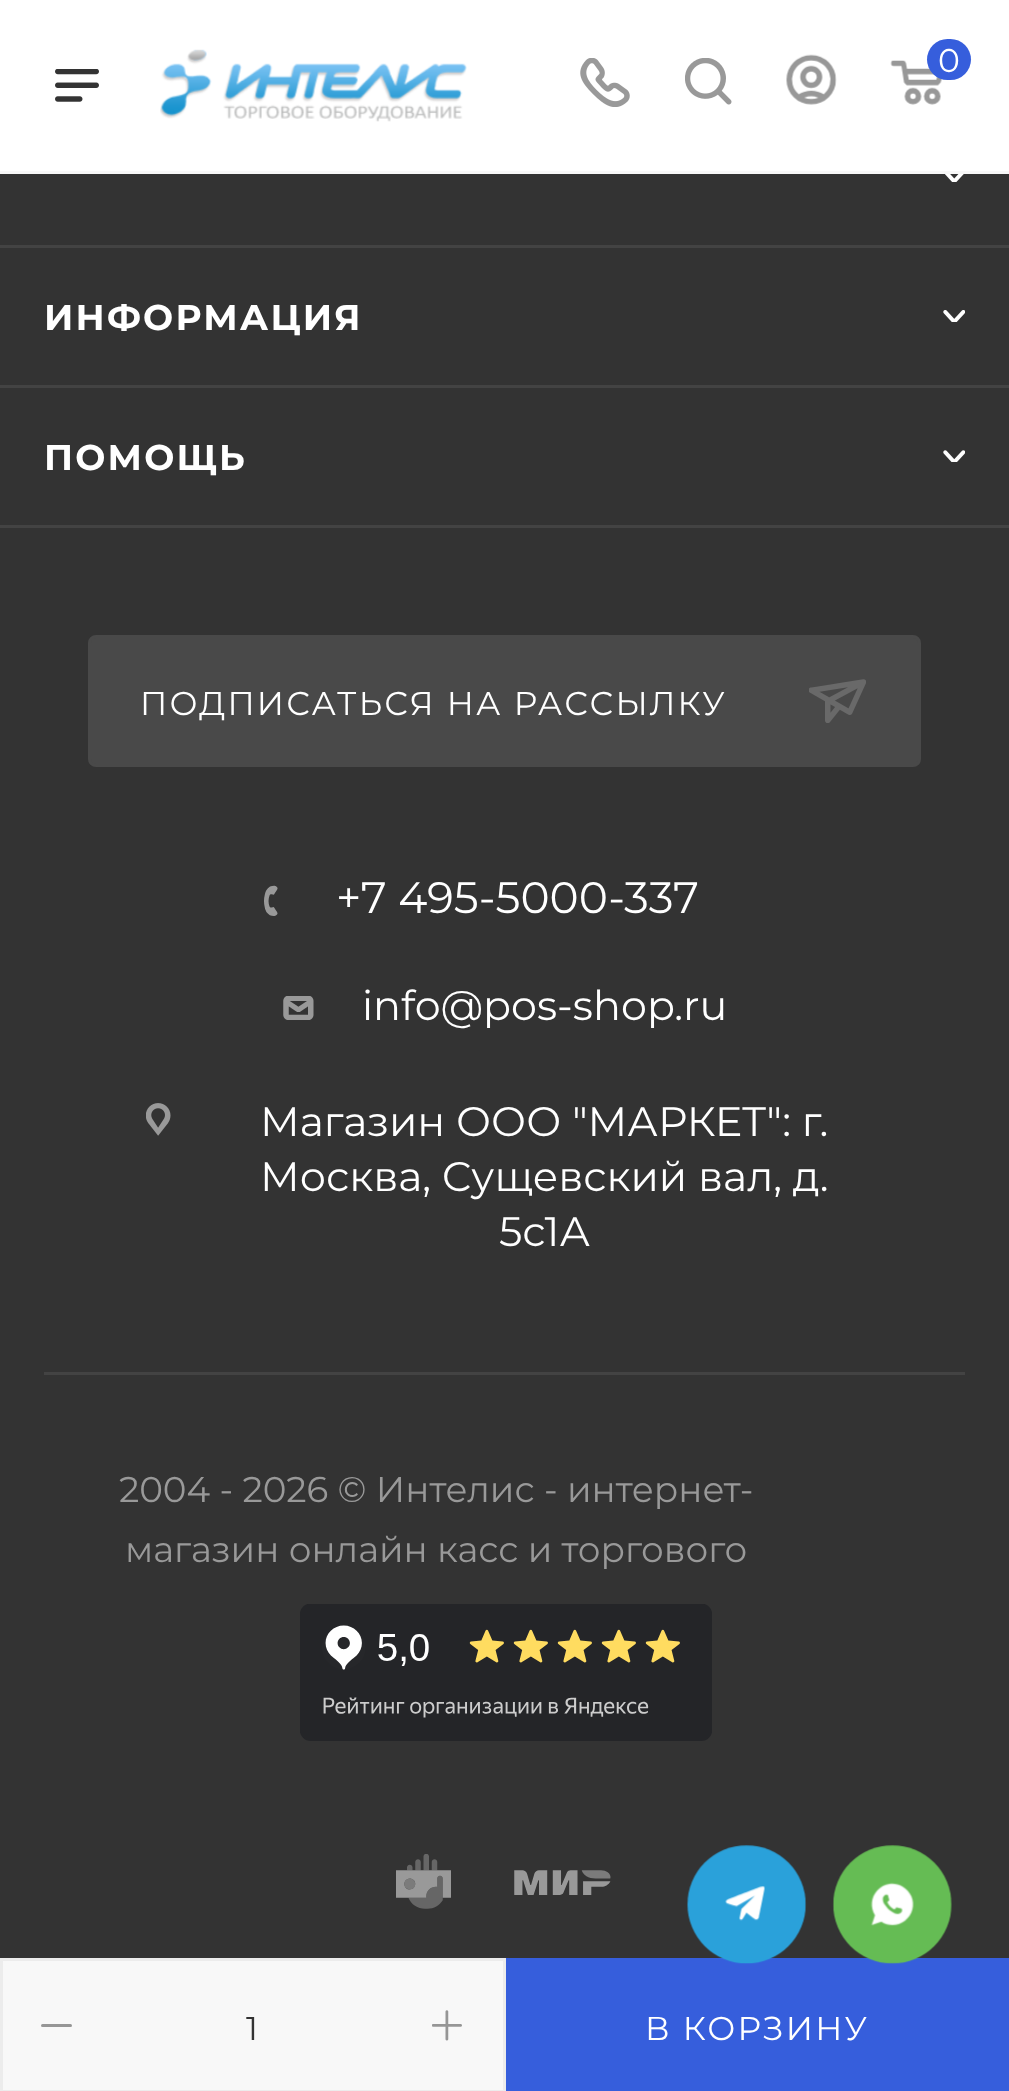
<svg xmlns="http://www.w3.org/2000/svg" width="1009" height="2091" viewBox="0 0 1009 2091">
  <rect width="100%" height="100%" fill="#333"/>
  <path d="M0 0h1009v171H0z" fill="#fff"/>
  <path d="M0 171h1009v3H0z" fill="#f8f8f8"/>
  <image x="55" y="69" width="44" height="33" href="img/1.png"/>
  <image x="160" y="49" width="307" height="73" href="img/2.png"/>
  <image x="580" y="58" width="50" height="49" href="img/3.png"/>
  <image x="685" y="58" width="47" height="47" href="img/4.png"/>
  <image x="786" y="54" width="51" height="51" href="img/5.png"/>
  <image x="890" y="60" width="53" height="45" href="img/6.png"/>
  <rect x="927" y="39" width="44" height="41" rx="20.5" fill="#365edc"/>
  <path d="M1.5 1959.5h503v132H1.5z" fill="#f8f8f8" stroke="#ececec" stroke-width="3"/>
  <rect x="41" y="2024" width="31" height="3" rx="1.5" fill="#969696"/>
  <image x="432" y="2010" width="30" height="31" href="img/7.png"/>
  <path d="M506 1958h503v133H506z" fill="#365edc"/>
  <path d="M0 245h1009v3H0z" fill="#434343"/>
  <image x="945" y="174" width="19" height="8" href="img/8.png"/>
  <path d="M0 385h1009v3H0z" fill="#434343"/>
  <image x="943" y="310" width="22" height="12" href="img/9.png"/>
  <path d="M0 525h1009v3H0z" fill="#434343"/>
  <image x="943" y="450" width="22" height="12" href="img/10.png"/>
  <rect x="89.5" y="636.5" width="830" height="129" rx="6.5" fill="#494949" stroke="#494949" stroke-width="3"/>
  <image x="809" y="679" width="57" height="44" href="img/11.png"/>
  <image x="264" y="885" width="14" height="31" href="img/12.png"/>
  <image x="283" y="996" width="31" height="24" href="img/13.png"/>
  <image x="146" y="1103" width="25" height="33" href="img/14.png"/>
  <path d="M44 1372h921v3H44z" fill="#434343"/>
  <image x="300" y="1604" width="412" height="137" href="img/15.png"/>
  <image x="396" y="1854" width="55" height="55" href="img/16.png"/>
  <image x="514" y="1870" width="97" height="25" href="img/17.png"/>
  <image x="687" y="1845" width="120" height="119" href="img/18.png"/>
  <image x="832" y="1845" width="120" height="119" href="img/19.png"/>
  <text x="938" y="72" font-family="Montserrat" font-size="33" fill="#fff">0</text>
  <text x="246" y="2040" font-family="Montserrat" font-size="33" fill="#333">1</text>
  <text x="645" y="2040" font-family="Montserrat" font-size="33" letter-spacing="2.2" fill="#fff">В КОРЗИНУ</text>
  <g font-family="Montserrat" font-size="35.75" font-weight="bold" letter-spacing="2.2" fill="#fff">
    <text x="44" y="330">ИНФОРМАЦИЯ</text>
    <text x="44" y="470">ПОМОЩЬ</text>
  </g>
  <text x="140" y="715" font-family="Montserrat" font-size="33" letter-spacing="2.2" fill="#fff">ПОДПИСАТЬСЯ НА РАССЫЛКУ</text>
  <text x="336" y="913" font-family="Montserrat" font-size="44" fill="#fff">+7 495-5000-337</text>
  <g font-family="Montserrat" font-size="41.25" fill="#fff">
    <text x="362" y="1020">info@pos-shop.ru</text>
    <text x="260" y="1136">Магазин ООО "МАРКЕТ": г.</text>
    <text x="260" y="1191">Москва, Сущевский вал, д.</text>
    <text x="499" y="1246">5с1А</text>
  </g>
  <g font-family="Montserrat" font-size="35.75" fill="#999">
    <text x="119" y="1502">2004 - 2026 © Интелис - интернет-</text>
    <text x="125" y="1562">магазин онлайн касс и торгового</text>
  </g>
</svg>
